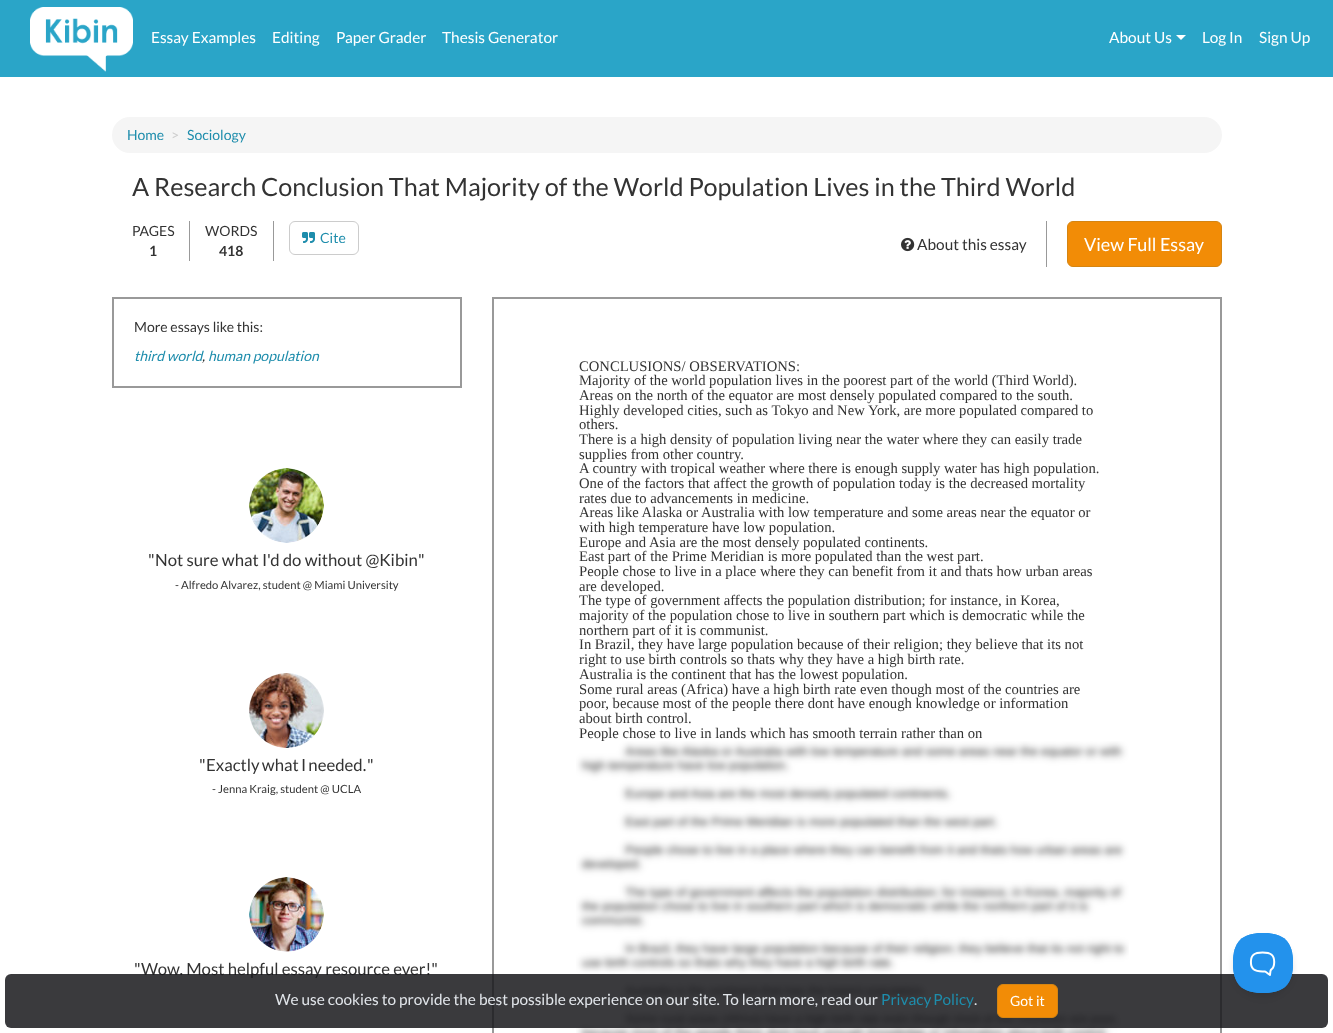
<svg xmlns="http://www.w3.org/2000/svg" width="1333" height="1033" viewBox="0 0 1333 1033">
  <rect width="100%" height="100%" fill="#fff"/>
  <path d="M0 0h1333v77H0z" fill="#2aa5c8"/>
  <image x="30" y="7" width="103" height="65" href="img/1.png"/>
  <path d="M1176 35H1186L1181 40Z" fill="#fff"/>
  <rect x="112" y="117" width="1110" height="36" rx="18" fill="#f5f5f5"/>
  <path d="M189 221h1v40H189z" fill="#999"/>
  <path d="M273 221h1v40H273z" fill="#999"/>
  <rect x="289.5" y="221.5" width="69" height="33" rx="5.5" fill="none" stroke="#ccc"/>
  <image x="302" y="232" width="13" height="11" href="img/2.png"/>
  <image x="901" y="237" width="14" height="15" href="img/3.png"/>
  <path d="M1046 221h1v46H1046z" fill="#999"/>
  <rect x="1067.5" y="221.5" width="154" height="45" rx="5.5" fill="#f28c06" stroke="#d58512"/>
  <path d="M113 298h348v89H113z" fill="none" stroke="#999" stroke-width="2"/>
  <image x="249" y="468" width="75" height="75" href="img/4.png"/>
  <image x="249" y="673" width="75" height="75" href="img/5.png"/>
  <image x="249" y="877" width="75" height="75" href="img/6.png"/>
  <path d="M493 298h728v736H493z" fill="none" stroke="#999" stroke-width="2"/>
  <image x="576" y="741" width="553" height="292" href="img/7.png"/>
  <g font-family="Lato" font-size="15.4" fill="#fff">
    <text x="151" y="43">Essay Examples</text>
    <text x="272" y="43">Editing</text>
    <text x="336" y="43">Paper Grader</text>
    <text x="442" y="43">Thesis Generator</text>
    <text x="1109" y="43">About Us</text>
    <text x="1202" y="43">Log In</text>
    <text x="1259" y="43">Sign Up</text>
  </g>
  <text x="127" y="140" font-family="Lato" font-size="14" fill="#1e8dac">Home</text>
  <text x="171" y="140" font-family="Lato" font-size="14" fill="#ccc">&gt;</text>
  <text x="187" y="140" font-family="Lato" font-size="14" fill="#1e8dac">Sociology</text>
  <text x="132" y="196" font-family="Lato" font-size="25.2" fill="#333">A Research Conclusion That Majority of the World Population Lives in the Third World</text>
  <text x="132" y="236" font-family="Lato" font-size="14" fill="#333">PAGES</text>
  <text x="149" y="256" font-family="Lato" font-size="14" font-weight="bold" fill="#333">1</text>
  <text x="205" y="236" font-family="Lato" font-size="14" fill="#333">WORDS</text>
  <text x="219" y="256" font-family="Lato" font-size="14" font-weight="bold" fill="#333">418</text>
  <text x="320" y="243" font-family="Lato" font-size="14" fill="#1e8dac">Cite</text>
  <text x="917" y="250" font-family="Lato" font-size="15.4" fill="#333">About this essay</text>
  <text x="1084" y="251" font-family="Lato" font-size="18" fill="#fff">View Full Essay</text>
  <text x="134" y="332" font-family="Lato" font-size="14" fill="#333">More essays like this:</text>
  <g font-family="Lato" font-size="14" font-style="italic" fill="#1e8dac">
    <text x="134" y="361">third world</text>
    <text x="208" y="361">human population</text>
  </g>
  <text x="202" y="361" font-family="Lato" font-size="14" font-style="italic" fill="#333">,</text>
  <g font-family="Lato" font-size="16.75" fill="#333">
    <text x="148" y="566">"</text>
    <text x="155" y="566">Not sure what I'd do without @Kibin</text>
    <text x="418" y="566">"</text>
  </g>
  <text x="175" y="589" font-family="Lato" font-size="11.25" fill="#333">- Alfredo Alvarez, student @ Miami University</text>
  <g font-family="Lato" font-size="16.75" fill="#333">
    <text x="199" y="771">"</text>
    <text x="206" y="771" word-spacing="-1">Exactly what I needed.</text>
    <text x="367" y="771">"</text>
  </g>
  <text x="212" y="793" font-family="Lato" font-size="11.25" fill="#333">- Jenna Kraig, student @ UCLA</text>
  <g font-family="Lato" font-size="16.75" fill="#333">
    <text x="134" y="975">"</text>
    <text x="141" y="975">Wow. Most helpful essay resource ever!"</text>
  </g>
  <g font-family="Liberation Serif" font-size="14.65" fill="#333">
    <text x="579" y="371">CONCLUSIONS/ OBSERVATIONS:</text>
    <text x="579" y="385">Majority of the world population lives in the poorest part of the world (Third World).</text>
    <text x="579" y="400">Areas on the north of the equator are most densely populated compared to the south.</text>
    <text x="579" y="415">Highly developed cities, such as Tokyo and New York, are more populated compared to</text>
    <text x="579" y="429">others.</text>
    <text x="579" y="444">There is a high density of population living near the water where they can easily trade</text>
    <text x="579" y="459">supplies from other country.</text>
    <text x="579" y="473">A country with tropical weather where there is enough supply water has high population.</text>
    <text x="579" y="488">One of the factors that affect the growth of population today is the decreased mortality</text>
    <text x="579" y="503">rates due to advancements in medicine.</text>
    <text x="579" y="517">Areas like Alaska or Australia with low temperature and some areas near the equator or</text>
    <text x="579" y="532">with high temperature have low population.</text>
    <text x="579" y="547">Europe and Asia are the most densely populated continents.</text>
    <text x="579" y="561">East part of the Prime Meridian is more populated than the west part.</text>
    <text x="579" y="576">People chose to live in a place where they can benefit from it and thats how urban areas</text>
    <text x="579" y="591">are developed.</text>
    <text x="579" y="605">The type of government affects the population distribution; for instance, in Korea,</text>
    <text x="579" y="620">majority of the population chose to live in southern part which is democratic while the</text>
    <text x="579" y="635">northern part of it is communist.</text>
    <text x="579" y="649">In Brazil, they have large population because of their religion; they believe that its not</text>
    <text x="579" y="664">right to use birth controls so thats why they have a high birth rate.</text>
    <text x="579" y="679">Australia is the continent that has the lowest population.</text>
    <text x="579" y="694">Some rural areas (Africa) have a high birth rate even though most of the countries are</text>
    <text x="579" y="708">poor, because most of the people there dont have enough knowledge or information</text>
    <text x="579" y="723">about birth control.</text>
    <text x="579" y="738">People chose to live in lands which has smooth terrain rather than on</text>
  </g>
  <rect x="5" y="974" width="1323" height="54" rx="6" fill="#17181bd9"/>
  <text x="275" y="1005" font-family="Lato" font-size="15.4" fill="#e1e5ea">We use cookies to provide the best possible experience on our site. To learn more, read our</text>
  <text x="881" y="1005" word-spacing="-1" font-family="Lato" font-size="15.4" fill="#1e8dac">Privacy Policy</text>
  <text x="974" y="1005" font-family="Lato" font-size="15.4" fill="#e1e5ea">.</text>
  <rect x="997.5" y="984.5" width="60" height="33" rx="5.5" fill="#f28c06" stroke="#d58512"/>
  <text x="1010" y="1006" font-family="Lato" font-size="14" fill="#fff">Got it</text>
  <rect x="1233" y="937" width="60" height="60" rx="30" fill="#0000001a" filter="blur(3.5px)"/>
  <image x="1233" y="933" width="60" height="60" href="img/8.png"/>
</svg>
